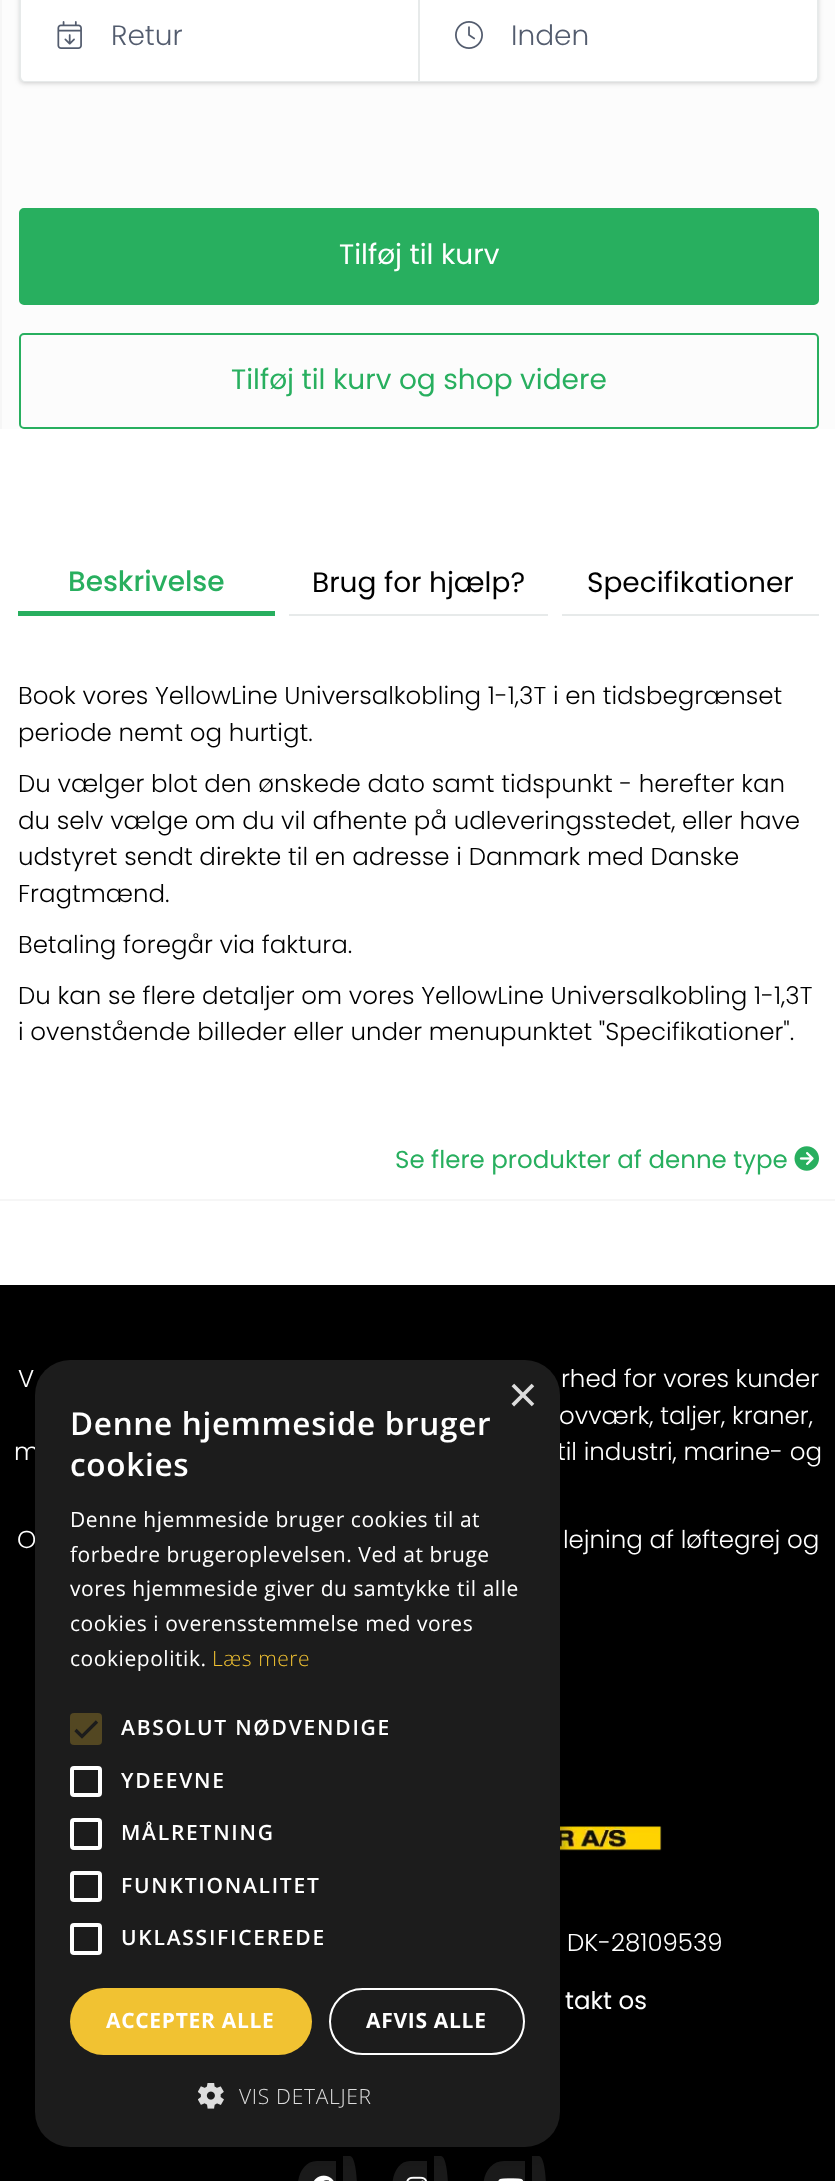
<svg xmlns="http://www.w3.org/2000/svg" width="835" height="2181" viewBox="0 0 835 2181">
  <rect width="100%" height="100%" fill="#fff"/>
  <path d="M2 0h833v429H2z" fill="#fcfcfc"/>
  <path d="M0 0h2v429H0z" fill="#f6f6f6"/>
  <rect x="21" y="-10" width="796" height="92" rx="4" fill="#0000001a" filter="blur(2px)"/>
  <rect x="19" y="-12" width="800" height="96" rx="5" fill="#0000001a" filter="blur(2.5px)"/>
  <rect x="20" y="-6" width="798" height="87" rx="4" fill="none" stroke="#e7eaea" stroke-width="2"/>
  <path d="M25-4H418V81H25C23 81 21 79 21 77V0C21-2 23-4 25-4Z" fill="#fff"/>
  <image x="57" y="21" width="25" height="28" href="img/1.png"/>
  <path d="M418 0h2v81H418z" fill="#e7eaea"/>
  <path d="M420-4H813C815-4 817-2 817 0V77C817 79 815 81 813 81H420Z" fill="#fff"/>
  <image x="455" y="21" width="28" height="28" href="img/2.png"/>
  <rect x="20" y="209" width="798" height="95" rx="4" fill="#28af5f" stroke="#28af5f" stroke-width="2"/>
  <rect x="20" y="334" width="798" height="94" rx="4" fill="none" stroke="#28af5f" stroke-width="2"/>
  <path d="M0 1199h835v2H0z" fill="#f6f6f6"/>
  <path d="M18 611h257v5H18z" fill="#28af5f"/>
  <path d="M289 614h259v2H289z" fill="#e7eaea"/>
  <path d="M562 614h257v2H562z" fill="#e7eaea"/>
  <image x="794" y="1146" width="25" height="25" href="img/3.png"/>
  <path d="M0 1285h835v896H0z" fill="#000"/>
  <image x="560" y="1826" width="102" height="25" href="img/4.png"/>
  <path d="M317 2161H336V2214C330 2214 318 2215 313 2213C291 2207 293 2161 317 2161ZM343 2156H350C354 2156 357 2170 357 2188C357 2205 354 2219 350 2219H343Z" fill="#1a1a1a"/>
  <image x="313" y="2175" width="21" height="6" href="img/5.png"/>
  <path d="M410 2161H427V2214C421 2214 411 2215 406 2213C386 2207 388 2161 410 2161ZM434 2156H441C445 2156 448 2170 448 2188C448 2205 445 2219 441 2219H434Z" fill="#1a1a1a"/>
  <image x="406" y="2176" width="21" height="5" href="img/6.png"/>
  <path d="M504 2161H525V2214C517 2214 503 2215 496 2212C476 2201 480 2161 504 2161ZM532 2156H539C543 2156 546 2170 546 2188C546 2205 543 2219 539 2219H532Z" fill="#1a1a1a"/>
  <image x="498" y="2178" width="26" height="3" href="img/7.png"/>
  <rect x="37" y="1363" width="525" height="788" rx="35" fill="#00000059" filter="blur(7px)"/>
  <g font-family="Poppins" font-size="28" font-weight="300" fill="#535c6e">
    <text x="111" y="45">Retur</text>
    <text x="511" y="45">Inden</text>
  </g>
  <text x="339" y="264" font-family="Poppins" font-size="28" fill="#fff">Tilføj til kurv</text>
  <text x="231" y="389" font-family="Poppins" font-size="28" fill="#28af5f">Tilføj til kurv og shop videre</text>
  <text x="68" y="591" font-family="Poppins" font-size="28" font-weight="500" fill="#28af5f">Beskrivelse</text>
  <g font-family="Poppins" font-size="28" fill="#000">
    <text x="312" y="592">Brug for hjælp?</text>
    <text x="587" y="592">Specifikationer</text>
  </g>
  <g font-family="Poppins" font-size="24.5" font-weight="300" fill="#000">
    <text x="18" y="704">Book vores YellowLine Universalkobling 1-1,3T i en tidsbegrænset</text>
    <text x="18" y="741">periode nemt og hurtigt.</text>
    <text x="18" y="792">Du vælger blot den ønskede dato samt tidspunkt - herefter kan</text>
    <text x="18" y="829">du selv vælge om du vil afhente på udleveringsstedet, eller have</text>
    <text x="18" y="865">udstyret sendt direkte til en adresse i Danmark med Danske</text>
    <text x="18" y="902">Fragtmænd.</text>
    <text x="18" y="953">Betaling foregår via faktura.</text>
    <text x="18" y="1004">Du kan se flere detaljer om vores YellowLine Universalkobling 1-1,3T</text>
    <text x="18" y="1040">i ovenstående billeder eller under menupunktet "Specifikationer".</text>
  </g>
  <text x="395" y="1168" font-family="Poppins" font-size="24.5" fill="#28af5f">Se flere produkter af denne type</text>
  <g font-family="Poppins" font-size="24.5" font-weight="300" fill="#fff">
    <text x="18" y="1387">V</text>
    <text x="561" y="1387">rhed for vores kunder</text>
    <text x="559" y="1424">ovværk, taljer, kraner,</text>
    <text x="14" y="1460">m</text>
    <text x="557" y="1460">til industri, marine- og</text>
    <text x="17" y="1548">O</text>
    <text x="563" y="1548">lejning af løftegrej og</text>
    <text x="567" y="1951">DK-28109539</text>
  </g>
  <text x="565" y="2009" font-family="Poppins" font-size="24.5" fill="#fff">takt os</text>
  <rect x="35" y="1360" width="525" height="787" rx="35" fill="#1c1c1c"/>
  <text x="508" y="1412" font-family="Liberation Sans" font-size="51" fill="#ddd">×</text>
  <g font-family="Open Sans" font-size="31.5" font-weight="600" letter-spacing="0.7" fill="#fff">
    <text x="70" y="1435">Denne hjemmeside bruger</text>
    <text x="70" y="1476">cookies</text>
  </g>
  <g font-family="Open Sans" font-size="21" letter-spacing="0.55" fill="#fff">
    <text x="70" y="1527">Denne hjemmeside bruger cookies til at</text>
    <text x="70" y="1562">forbedre brugeroplevelsen. Ved at bruge</text>
    <text x="70" y="1596">vores hjemmeside giver du samtykke til alle</text>
    <text x="70" y="1631">cookies i overensstemmelse med vores</text>
    <text x="70" y="1666">cookiepolitik.</text>
  </g>
  <text x="212" y="1666" font-family="Open Sans" font-size="21" font-weight="300" letter-spacing="0.55" fill="#f1c232">Læs mere</text>
  <rect x="70" y="1713" width="32" height="32" rx="4" fill="#534722"/>
  <path d="M75.5 1730L82 1736.5L97 1721.5" fill="none" stroke="#1c1c1c" stroke-width="3.2"/>
  <text x="121" y="1735" font-family="Open Sans" font-size="21" font-weight="600" letter-spacing="1.75" fill="#fff">ABSOLUT NØDVENDIGE</text>
  <rect x="72" y="1768" width="28" height="27" rx="2" fill="none" stroke="#fff" stroke-width="4"/>
  <text x="121" y="1788" font-family="Open Sans" font-size="21" font-weight="600" letter-spacing="1.75" fill="#fff">YDEEVNE</text>
  <rect x="72" y="1820" width="28" height="28" rx="2" fill="none" stroke="#fff" stroke-width="4"/>
  <text x="121" y="1840" font-family="Open Sans" font-size="21" font-weight="600" letter-spacing="1.75" fill="#fff">MÅLRETNING</text>
  <rect x="72" y="1873" width="28" height="27" rx="2" fill="none" stroke="#fff" stroke-width="4"/>
  <text x="121" y="1893" font-family="Open Sans" font-size="21" font-weight="600" letter-spacing="1.75" fill="#fff">FUNKTIONALITET</text>
  <rect x="72" y="1925" width="28" height="28" rx="2" fill="none" stroke="#fff" stroke-width="4"/>
  <text x="121" y="1945" font-family="Open Sans" font-size="21" font-weight="600" letter-spacing="1.75" fill="#fff">UKLASSIFICEREDE</text>
  <rect x="70" y="1988" width="242" height="67" rx="33.5" fill="#f1c232"/>
  <text x="106" y="2028" font-family="Open Sans" font-size="21" font-weight="bold" letter-spacing="0.7" fill="#fff">ACCEPTER ALLE</text>
  <rect x="330" y="1989" width="194" height="65" rx="32.5" fill="none" stroke="#fff" stroke-width="2"/>
  <text x="366" y="2028" font-family="Open Sans" font-size="21" font-weight="bold" letter-spacing="0.7" fill="#fff">AFVIS ALLE</text>
  <image x="198" y="2083" width="26" height="26" href="img/8.png"/>
  <text x="239" y="2104" font-family="Open Sans" font-size="21" font-weight="300" letter-spacing="0.7" fill="#ddd">VIS DETALJER</text>
</svg>
